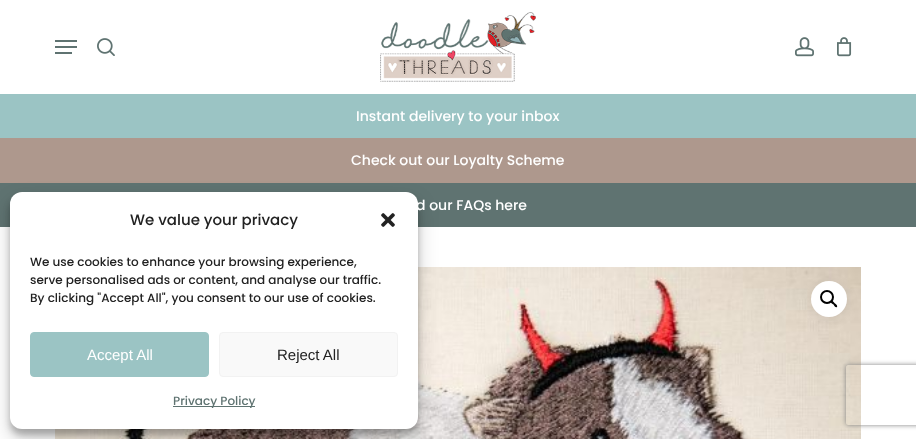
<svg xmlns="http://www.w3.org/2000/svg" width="916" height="439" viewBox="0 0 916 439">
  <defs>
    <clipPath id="clip1"><path d="M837 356H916V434H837ZM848 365H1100C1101 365 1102 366 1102 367V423C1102 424 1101 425 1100 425H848C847 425 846 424 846 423V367C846 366 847 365 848 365Z" clip-rule="evenodd"/></clipPath>
  </defs>
  <rect width="100%" height="100%" fill="#fff"/>
  <image x="380" y="12" width="156" height="70" href="img/1.png"/>
  <path d="M55 40h22v2H55z" fill="#5f7371"/>
  <path d="M55 52h17v2H55z" fill="#5f7371"/>
  <path d="M55 46h22v2H55z" fill="#5f7371"/>
  <image x="97" y="38" width="18" height="18" href="img/2.png"/>
  <image x="795" y="37" width="19" height="20" href="img/3.png"/>
  <image x="837" y="37" width="15" height="20" href="img/4.png"/>
  <path d="M0 94h916v44H0z" fill="#9bc4c4"/>
  <path d="M0 138h916v45H0z" fill="#ae988d"/>
  <path d="M0 183h916v44H0z" fill="#5f7371"/>
  <image x="55" y="267" width="806" height="172" href="img/5.png"/>
  <rect x="811" y="283" width="36" height="36" rx="18" fill="#00000014" filter="blur(6px)"/>
  <circle cx="829" cy="299" r="18" fill="#fff"/>
  <circle cx="827" cy="297" r="6" fill="none" stroke="#000" stroke-width="2"/>
  <path d="M831 301C832.5 300 834 302.5 834.5 303C835.5 304 838 305.5 837 307C835.5 308 834 305.5 833.5 304.5C832.5 304 830 302.5 831 301Z" fill="#000"/>
  <rect x="10" y="198" width="408" height="237" rx="12" fill="#0000003b" filter="blur(3px)"/>
  <rect x="10" y="202" width="408" height="237" rx="12" fill="#00000030" filter="blur(10px)"/>
  <rect x="10" y="192" width="408" height="237" rx="12" fill="#fff"/>
  <image x="381" y="213" width="14" height="14" href="img/6.png"/>
  <rect x="30.5" y="332.5" width="178" height="44" rx="3.5" fill="#9bc4c4" stroke="#9bc4c4"/>
  <rect x="219.5" y="332.5" width="178" height="44" rx="3.5" fill="#f9f9f9" stroke="#f2f2f2"/>
  <path d="M173 406h82v1H173z" fill="#5f7371"/>
  <g clip-path="url(#clip1)">
    <rect x="846" y="365" width="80" height="60" rx="2" fill="#808080" filter="blur(2.5px)"/>
  </g>
  <g font-family="Poppins" font-size="14" font-weight="500" fill="#fff">
    <text x="356" y="121">Instant delivery to your inbox</text>
    <text x="351" y="165">Check out our Loyalty Scheme</text>
    <text x="416" y="210">d our FAQs here</text>
  </g>
  <text x="130" y="225" font-family="Poppins" font-size="15" font-weight="500" fill="#222">We value your privacy</text>
  <g font-family="Poppins" font-size="12" font-weight="500" fill="#222">
    <text x="30" y="266">We use cookies to enhance your browsing experience,</text>
    <text x="30" y="284">serve personalised ads or content, and analyse our traffic.</text>
    <text x="30" y="302">By clicking "Accept All", you consent to our use of cookies.</text>
  </g>
  <text x="87" y="360" font-family="Liberation Sans" font-size="15" fill="#fff">Accept All</text>
  <text x="277" y="360" font-family="Liberation Sans" font-size="15" fill="#222">Reject All</text>
  <text x="173" y="405" font-family="Poppins" font-size="12" font-weight="500" fill="#5f7371">Privacy Policy</text>
</svg>
